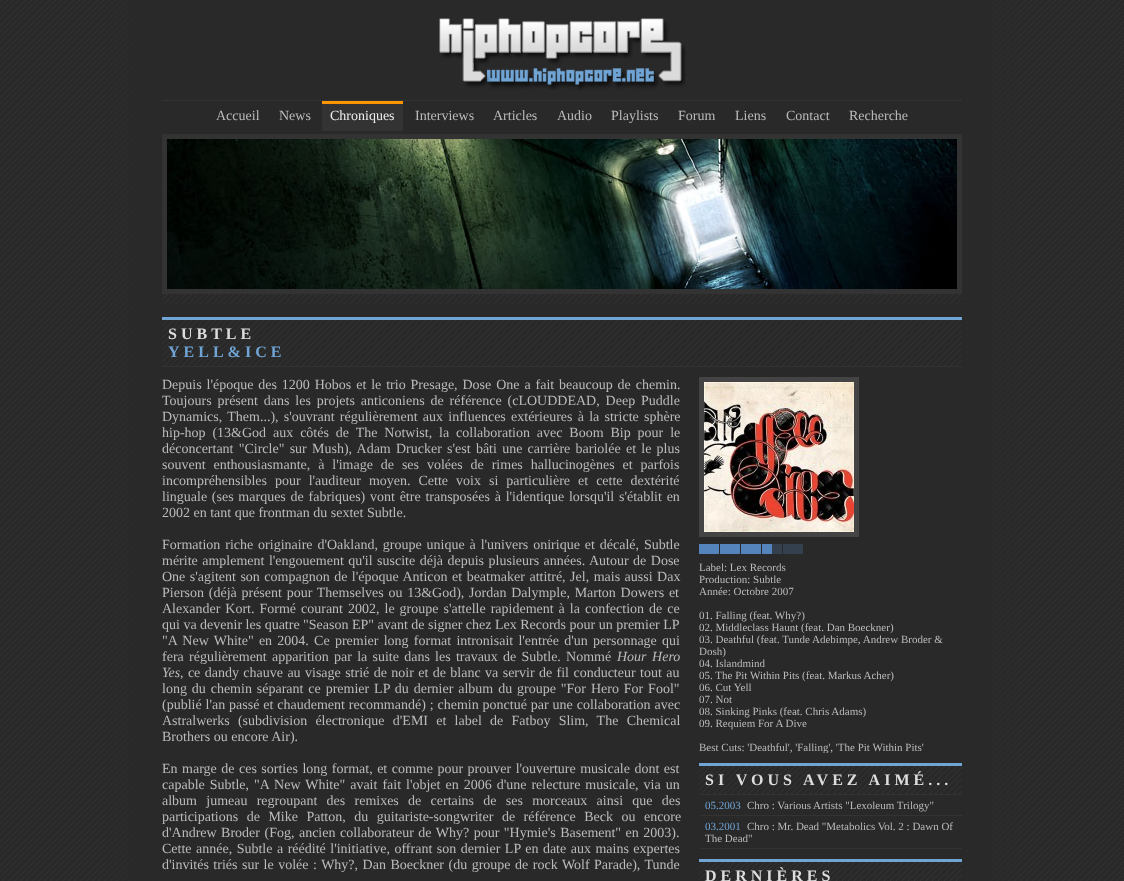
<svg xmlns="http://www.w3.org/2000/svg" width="1124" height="881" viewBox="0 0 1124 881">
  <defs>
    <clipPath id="clip1"><path d="M699 367h263v386H699z"/></clipPath>
  </defs>
  <rect width="100%" height="100%" fill="#fff"/>
  <image x="0" y="0" width="1124" height="881" href="img/1.png"/>
  <image x="439" y="18" width="247" height="72" href="img/2.png"/>
  <path d="M162 100h800v1H162z" fill="#333"/>
  <path d="M322 104h81v27H322z" fill="#333"/>
  <path d="M322 101h81v3H322z" fill="#fe9500"/>
  <image x="167" y="139" width="790" height="150" href="img/3.png"/>
  <path d="M164.5 136.5h795v155H164.5z" fill="none" stroke="#333" stroke-width="5"/>
  <image x="162" y="294" width="800" height="10" href="img/4.png"/>
  <image x="162" y="320" width="800" height="46" href="img/5.png"/>
  <path d="M162 317h800v3H162z" fill="#70a4d4"/>
  <path d="M162 366h800v1H162z" fill="#333"/>
  <path d="M701.5 379.5h155v155H701.5z" fill="none" stroke="#444" stroke-width="5"/>
  <image x="704" y="382" width="150" height="150" href="img/6.png"/>
  <image x="699" y="544" width="104" height="10" href="img/7.png"/>
  <image x="699" y="766" width="263" height="28" href="img/8.png"/>
  <path d="M699 763h263v3H699z" fill="#70a4d4"/>
  <path d="M699 794h263v1H699z" fill="#333"/>
  <path d="M699 815h263v1H699z" fill="#333"/>
  <path d="M699 848h263v1H699z" fill="#333"/>
  <image x="699" y="862" width="263" height="19" href="img/9.png"/>
  <path d="M699 859h263v3H699z" fill="#70a4d4"/>
  <g font-family="Liberation Serif" font-size="14" fill="#bbb">
    <text x="216" y="120">Accueil</text>
    <text x="279" y="120">News</text>
  </g>
  <text x="330" y="120" font-family="Liberation Serif" font-size="14" fill="#eee">Chroniques</text>
  <g font-family="Liberation Serif" font-size="14" fill="#bbb">
    <text x="415" y="120">Interviews</text>
    <text x="493" y="120">Articles</text>
    <text x="557" y="120">Audio</text>
    <text x="611" y="120">Playlists</text>
    <text x="678" y="120">Forum</text>
    <text x="735" y="120">Liens</text>
    <text x="786" y="120">Contact</text>
    <text x="849" y="120">Recherche</text>
  </g>
  <text x="168" y="339" font-family="Liberation Serif" font-size="16" font-weight="bold" letter-spacing="4" fill="#ddd">SUBTLE</text>
  <text x="168" y="357" font-family="Liberation Serif" font-size="16" font-weight="bold" letter-spacing="4" fill="#70a4d4">YELL&amp;ICE</text>
  <g font-family="Liberation Serif" font-size="14" fill="#bbb">
    <text x="162" y="389" word-spacing="1.4">Depuis l'époque des 1200 Hobos et le trio Presage, Dose One a fait beaucoup de chemin.</text>
    <text x="162" y="405" word-spacing="2.4">Toujours présent dans les projets anticoniens de référence (cLOUDDEAD, Deep Puddle</text>
    <text x="162" y="421" word-spacing="1.75">Dynamics, Them...), s'ouvrant régulièrement aux influences extérieures à la stricte sphère</text>
    <text x="162" y="437" word-spacing="3.4">hip-hop (13&amp;God aux côtés de The Notwist, la collaboration avec Boom Bip pour le</text>
    <text x="162" y="453" word-spacing="1.75">déconcertant "Circle" sur Mush), Adam Drucker s'est bâti une carrière bariolée et le plus</text>
    <text x="162" y="469" word-spacing="4.4">souvent enthousiasmante, à l'image de ses volées de rimes hallucinogènes et parfois</text>
    <text x="162" y="485" word-spacing="4.5">incompréhensibles pour l'auditeur moyen. Cette voix si particulière et cette dextérité</text>
    <text x="162" y="501" word-spacing="1.25">linguale (ses marques de fabriques) vont être transposées à l'identique lorsqu'il s'établit en</text>
    <text x="162" y="517">2002 en tant que frontman du sextet Subtle.</text>
    <text x="162" y="549" word-spacing="1.4">Formation riche originaire d'Oakland, groupe unique à l'univers onirique et décalé, Subtle</text>
    <text x="162" y="565" word-spacing="1">mérite amplement l'engouement qu'il suscite déjà depuis plusieurs années. Autour de Dose</text>
    <text x="162" y="581" word-spacing="1">One s'agitent son compagnon de l'époque Anticon et beatmaker attitré, Jel, mais aussi Dax</text>
    <text x="162" y="597" word-spacing="1.25">Pierson (déjà présent pour Themselves ou 13&amp;God), Jordan Dalymple, Marton Dowers et</text>
    <text x="162" y="613" word-spacing="1.5">Alexander Kort. Formé courant 2002, le groupe s'attelle rapidement à la confection de ce</text>
    <text x="162" y="629">qui va devenir les quatre "Season EP" avant de signer chez Lex Records pour un premier LP</text>
    <text x="162" y="645" word-spacing="1.75">"A New White" en 2004. Ce premier long format intronisait l'entrée d'un personnage qui</text>
    <text x="162" y="661" word-spacing="1.75">fera régulièrement apparition par la suite dans les travaux de Subtle. Nommé</text>
  </g>
  <g font-family="Liberation Serif" font-size="14" font-style="italic" fill="#bbb">
    <text x="617" y="661" word-spacing="2">Hour Hero</text>
    <text x="162" y="677">Yes</text>
  </g>
  <g font-family="Liberation Serif" font-size="14" fill="#bbb">
    <text x="180" y="677" word-spacing="0.9">, ce dandy chauve au visage strié de noir et de blanc va servir de fil conducteur tout au</text>
    <text x="162" y="693" word-spacing="1.4">long du chemin séparant ce premier LP du dernier album du groupe "For Hero For Fool"</text>
    <text x="162" y="709" word-spacing="0.4">(publié l'an passé et chaudement recommandé) ; chemin ponctué par une collaboration avec</text>
    <text x="162" y="725" word-spacing="4.75">Astralwerks (subdivision électronique d'EMI et label de Fatboy Slim, The Chemical</text>
    <text x="162" y="741">Brothers ou encore Air).</text>
    <text x="162" y="773" word-spacing="1">En marge de ces sorties long format, et comme pour prouver l'ouverture musicale dont est</text>
    <text x="162" y="789" word-spacing="1.5">capable Subtle, "A New White" avait fait l'objet en 2006 d'une relecture musicale, via un</text>
    <text x="162" y="805" word-spacing="5.75">album jumeau regroupant des remixes de certains de ses morceaux ainsi que des</text>
    <text x="162" y="821" word-spacing="5">participations de Mike Patton, du guitariste-songwriter de référence Beck ou encore</text>
    <text x="162" y="837" word-spacing="1">d'Andrew Broder (Fog, ancien collaborateur de Why? pour "Hymie's Basement" en 2003).</text>
    <text x="162" y="853" word-spacing="1">Cette année, Subtle a réédité l'initiative, offrant son dernier LP en date aux mains expertes</text>
    <text x="162" y="869" word-spacing="1">d'invités triés sur le volée : Why?, Dan Boeckner (du groupe de rock Wolf Parade), Tunde</text>
  </g>
  <g font-family="Liberation Serif" font-size="11" fill="#bbb">
    <text x="699" y="571">Label: Lex Records</text>
    <text x="699" y="583">Production: Subtle</text>
    <text x="699" y="595">Année: Octobre 2007</text>
    <text x="699" y="619">01. Falling (feat. Why?)</text>
    <text x="699" y="631">02. Middleclass Haunt (feat. Dan Boeckner)</text>
    <text x="699" y="643">03. Deathful (feat. Tunde Adebimpe, Andrew Broder &amp;</text>
    <text x="699" y="655">Dosh)</text>
    <text x="699" y="667">04. Islandmind</text>
    <text x="699" y="679">05. The Pit Within Pits (feat. Markus Acher)</text>
    <text x="699" y="691">06. Cut Yell</text>
    <text x="699" y="703">07. Not</text>
    <text x="699" y="715">08. Sinking Pinks (feat. Chris Adams)</text>
    <text x="699" y="727">09. Requiem For A Dive</text>
  </g>
  <g clip-path="url(#clip1)">
    <text x="699" y="751" font-family="Liberation Serif" font-size="11" fill="#bbb">Best Cuts: 'Deathful', 'Falling', 'The Pit Within Pits'</text>
  </g>
  <text x="705" y="785" font-family="Liberation Serif" font-size="16" font-weight="bold" letter-spacing="4" fill="#ddd">SI VOUS AVEZ AIMÉ...</text>
  <text x="705" y="809" font-family="Liberation Serif" font-size="11" fill="#70a4d4">05.2003</text>
  <text x="747" y="809" font-family="Liberation Serif" font-size="11" fill="#bbb">Chro : Various Artists "Lexoleum Trilogy"</text>
  <text x="705" y="830" font-family="Liberation Serif" font-size="11" fill="#70a4d4">03.2001</text>
  <g font-family="Liberation Serif" font-size="11" fill="#bbb">
    <text x="747" y="830">Chro : Mr. Dead "Metabolics Vol. 2 : Dawn Of</text>
    <text x="705" y="842">The Dead"</text>
  </g>
  <text x="705" y="881" font-family="Liberation Serif" font-size="16" font-weight="bold" letter-spacing="4" fill="#ddd">DERNIÈRES</text>
</svg>
